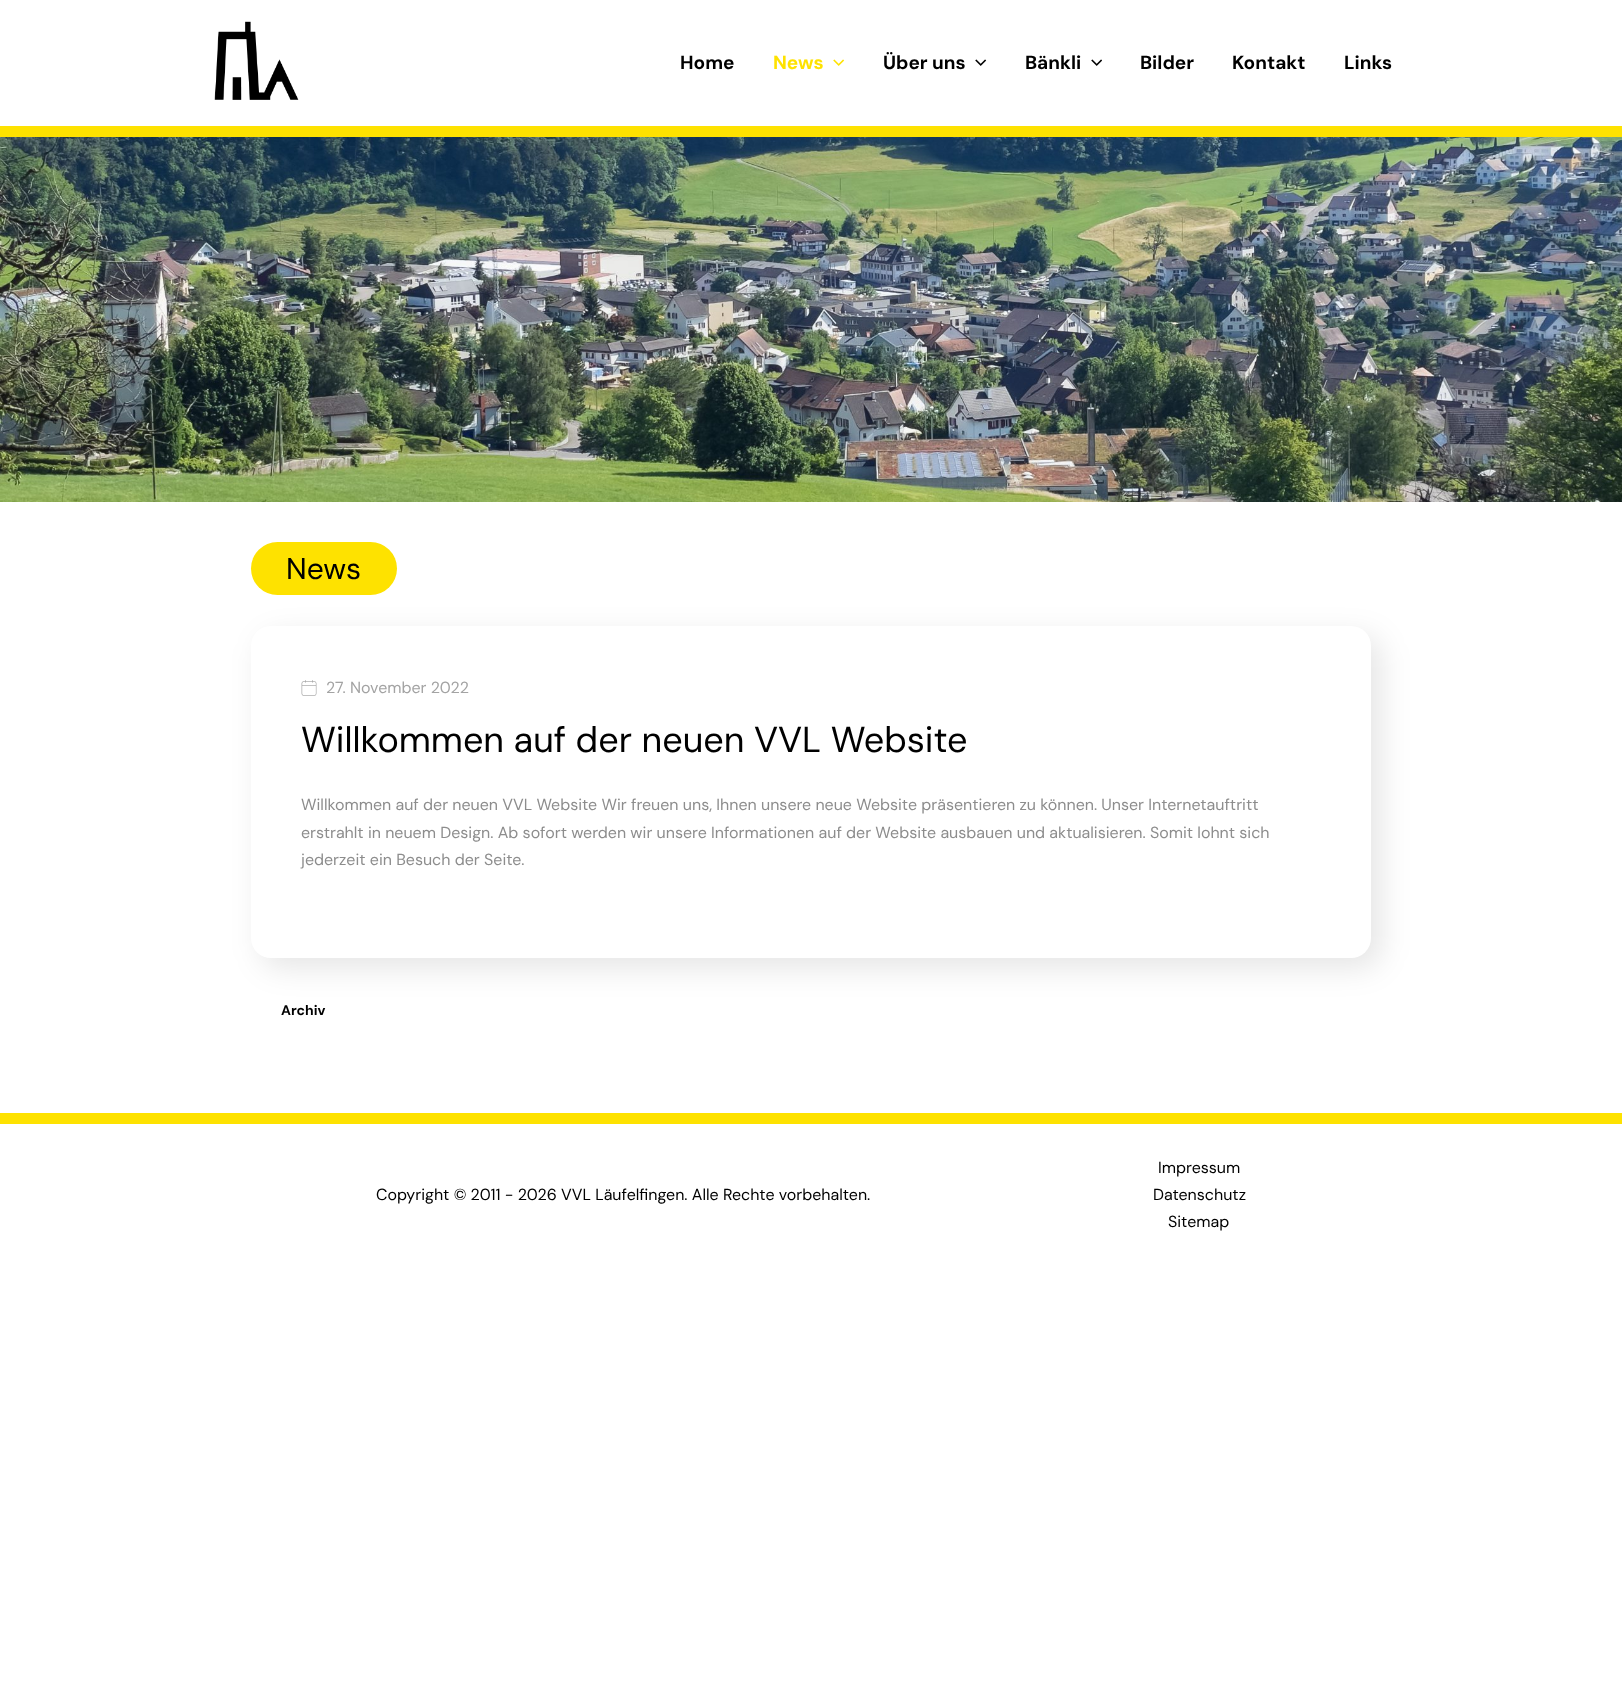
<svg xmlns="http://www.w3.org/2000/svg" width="1622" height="1699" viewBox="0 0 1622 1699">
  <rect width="100%" height="100%" fill="#fff"/>
  <path d="M0 126h1622v11H0z" fill="#fee200"/>
  <image x="214" y="21" width="85" height="79" href="img/1.png"/>
  <image x="833" y="59" width="12" height="7" href="img/2.png"/>
  <image x="975" y="59" width="12" height="7" href="img/3.png"/>
  <image x="1091" y="59" width="11" height="7" href="img/4.png"/>
  <image x="0" y="137" width="1622" height="365" href="img/5.png"/>
  <rect x="251" y="542" width="146" height="53" rx="26.5" fill="#fee200"/>
  <rect x="261" y="636" width="1120" height="332" rx="20" fill="#0000001a" filter="blur(15px)"/>
  <rect x="251" y="626" width="1120" height="332" rx="20" fill="#fff"/>
  <image x="301" y="680" width="16" height="16" href="img/6.png"/>
  <path d="M0 1113h1622v11H0z" fill="#fee200"/>
  <text x="680" y="69" font-family="DM Sans" font-size="19" font-weight="bold" fill="#000">Home</text>
  <text x="773" y="69" font-family="DM Sans" font-size="19" font-weight="bold" fill="#fee200">News</text>
  <g font-family="DM Sans" font-size="19" font-weight="bold" fill="#000">
    <text x="883" y="69">Über uns</text>
    <text x="1025" y="69">Bänkli</text>
    <text x="1140" y="69">Bilder</text>
    <text x="1232" y="69">Kontakt</text>
    <text x="1344" y="69">Links</text>
  </g>
  <text x="286" y="579" font-family="DM Sans" font-size="30" fill="#000">News</text>
  <text x="326" y="693" font-family="DM Sans" font-size="16" fill="#a3a3a3">27. November 2022</text>
  <text x="301" y="752" font-family="DM Sans" font-size="36" fill="#000">Willkommen auf der neuen VVL Website</text>
  <g font-family="DM Sans" font-size="16" fill="#8d8d8d">
    <text x="301" y="810">Willkommen auf der neuen VVL Website Wir freuen uns, Ihnen unsere neue Website präsentieren zu können. Unser Internetauftritt</text>
    <text x="301" y="838">erstrahlt in neuem Design. Ab sofort werden wir unsere Informationen auf der Website ausbauen und aktualisieren. Somit lohnt sich</text>
    <text x="301" y="865">jederzeit ein Besuch der Seite.</text>
  </g>
  <text x="281" y="1015" font-family="DM Sans" font-size="14" font-weight="bold" fill="#000">Archiv</text>
  <g font-family="DM Sans" font-size="16" fill="#000">
    <text x="376" y="1200">Copyright © 2011 - 2026 VVL Läufelfingen. Alle Rechte vorbehalten.</text>
    <text x="1158" y="1173">Impressum</text>
    <text x="1153" y="1200">Datenschutz</text>
    <text x="1168" y="1227">Sitemap</text>
  </g>
</svg>
